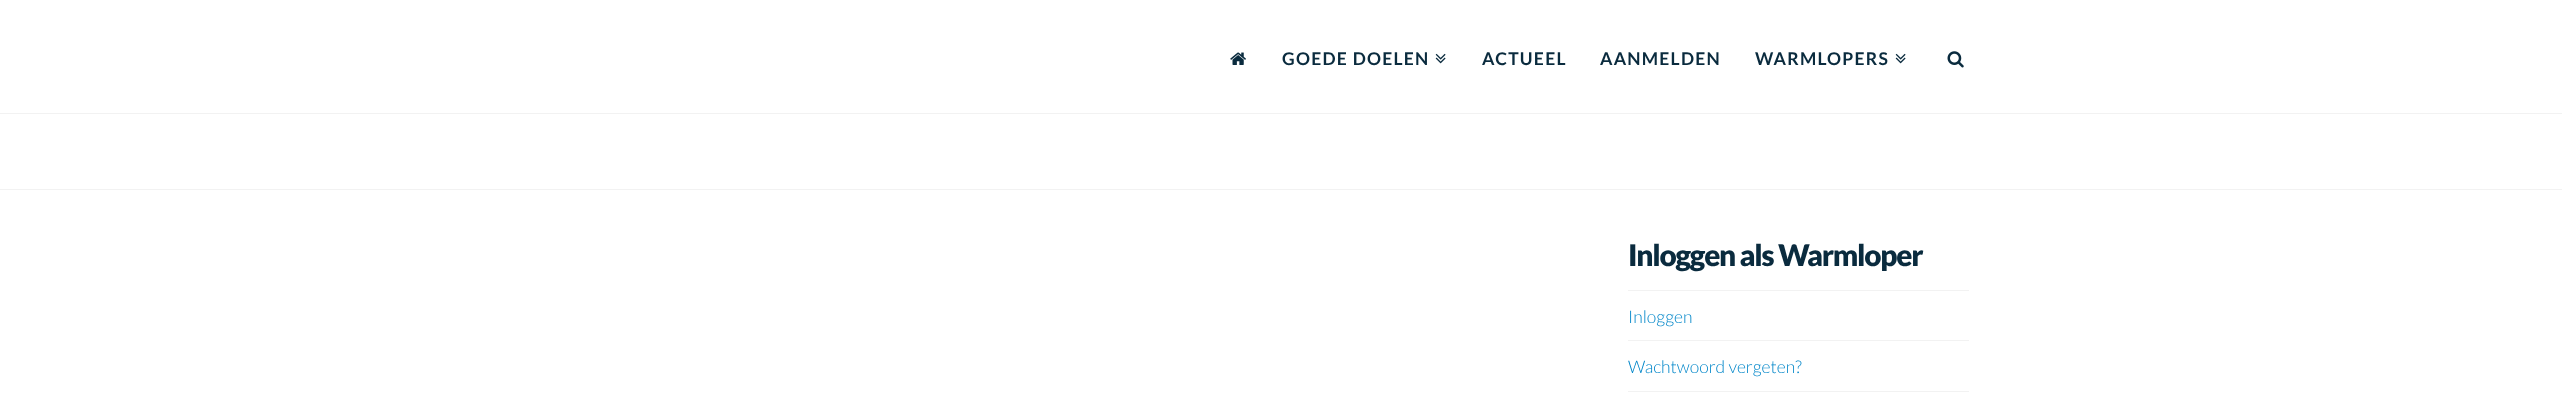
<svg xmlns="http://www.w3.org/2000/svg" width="2562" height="394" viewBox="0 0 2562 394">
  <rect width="100%" height="100%" fill="#fff"/>
  <image x="1230" y="52" width="16" height="13" href="img/1.png"/>
  <image x="1435" y="53" width="11" height="11" href="img/2.png"/>
  <image x="1895" y="53" width="11" height="11" href="img/2.png"/>
  <image x="1947" y="51" width="17" height="17" href="img/3.png"/>
  <path d="M0 113h2562v1H0z" fill="#f2f2f2"/>
  <path d="M0 189h2562v1H0z" fill="#f2f2f2"/>
  <path d="M1628 290h341v1H1628z" fill="#f2f2f2"/>
  <path d="M1628 340h341v1H1628z" fill="#f2f2f2"/>
  <path d="M1628 391h341v1H1628z" fill="#f2f2f2"/>
  <g font-family="Lato" font-size="17.5" font-weight="bold" letter-spacing="1.25" fill="#0a2b3e">
    <text x="1282" y="65">GOEDE DOELEN</text>
    <text x="1482" y="65">ACTUEEL</text>
    <text x="1600" y="65">AANMELDEN</text>
    <text x="1755" y="65">WARMLOPERS</text>
  </g>
  <text x="1628" y="266" font-family="Lato" font-size="29.75" font-weight="900" letter-spacing="-1.25" fill="#0a2b3e">Inloggen als Warmloper</text>
  <g font-family="Lato" font-size="17.5" font-weight="300" fill="#0186c9">
    <text x="1628" y="323">Inloggen</text>
    <text x="1628" y="373">Wachtwoord vergeten?</text>
  </g>
</svg>
